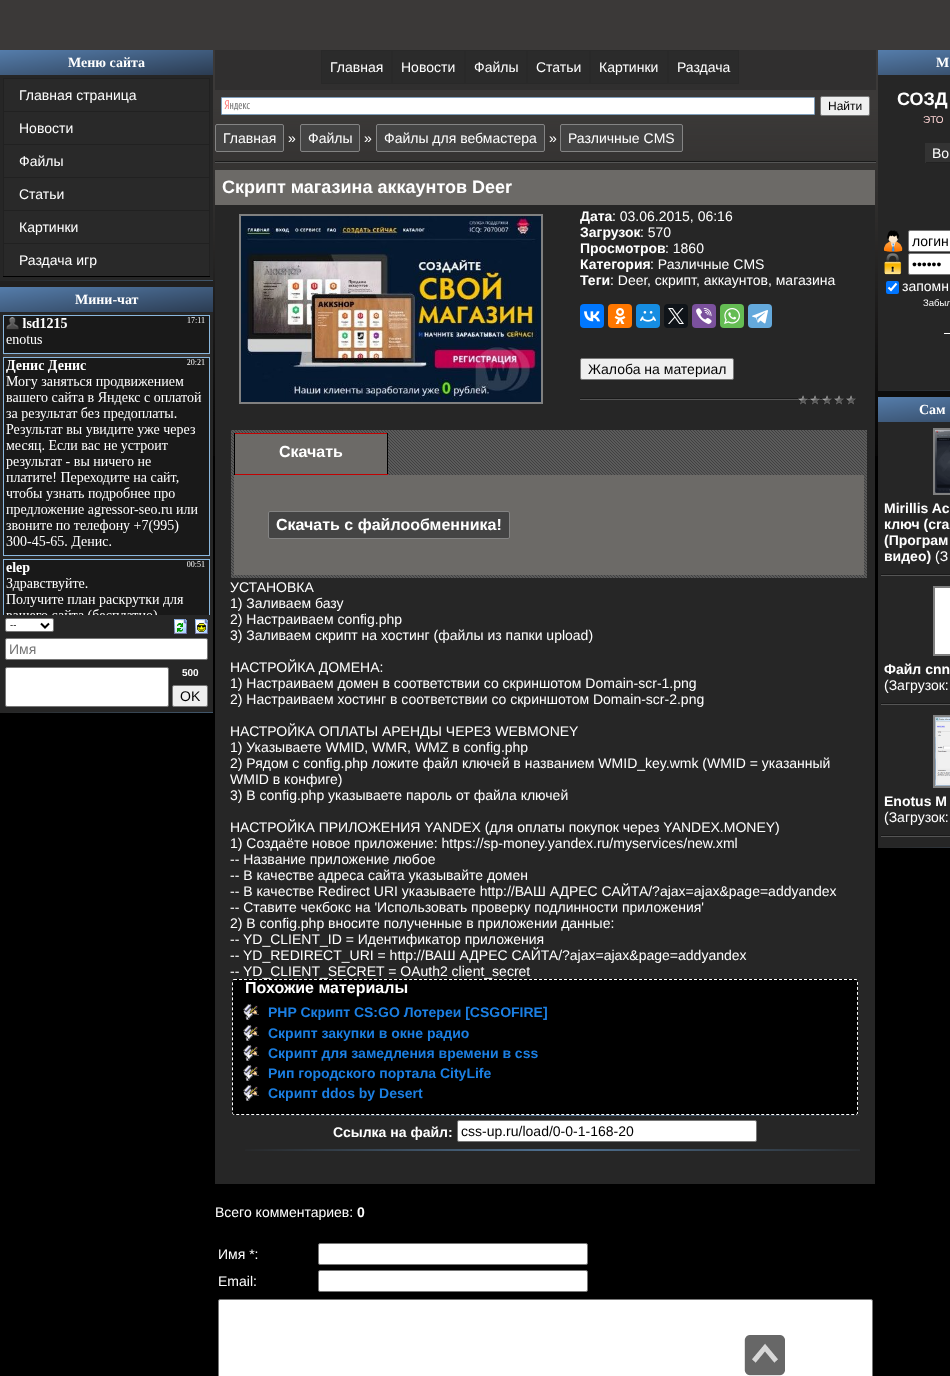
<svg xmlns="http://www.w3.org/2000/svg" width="950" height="1376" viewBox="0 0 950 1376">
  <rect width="100%" height="100%" fill="#000"/>
  <image x="0" y="0" width="950" height="456" href="img/1.png"/>
  <image x="0" y="50" width="213" height="25" href="img/2.png"/>
  <path d="M0 75h213v205H0z" fill="#262626"/>
  <path d="M3 276h207v1H3z" fill="#000"/>
  <path d="M4 79h205v32H4z" fill="#292929"/>
  <path d="M3 78h207v1H3z" fill="#212121"/>
  <path d="M209 78h1v33H209z" fill="#212121"/>
  <path d="M3 78h1v33H3z" fill="#212121"/>
  <path d="M4 112h205v32H4z" fill="#292929"/>
  <path d="M3 111h207v1H3z" fill="#212121"/>
  <path d="M209 111h1v33H209z" fill="#212121"/>
  <path d="M3 111h1v33H3z" fill="#212121"/>
  <path d="M4 145h205v32H4z" fill="#292929"/>
  <path d="M3 144h207v1H3z" fill="#212121"/>
  <path d="M209 144h1v33H209z" fill="#212121"/>
  <path d="M3 144h1v33H3z" fill="#212121"/>
  <path d="M4 178h205v32H4z" fill="#292929"/>
  <path d="M3 177h207v1H3z" fill="#212121"/>
  <path d="M209 177h1v33H209z" fill="#212121"/>
  <path d="M3 177h1v33H3z" fill="#212121"/>
  <path d="M4 211h205v32H4z" fill="#292929"/>
  <path d="M3 210h207v1H3z" fill="#212121"/>
  <path d="M209 210h1v33H209z" fill="#212121"/>
  <path d="M3 210h1v33H3z" fill="#212121"/>
  <path d="M4 244h205v32H4z" fill="#292929"/>
  <path d="M3 243h207v1H3z" fill="#212121"/>
  <path d="M209 243h1v33H209z" fill="#212121"/>
  <path d="M3 243h1v33H3z" fill="#212121"/>
  <image x="0" y="280" width="213" height="1" href="img/3.png"/>
  <image x="0" y="287" width="213" height="25" href="img/2.png"/>
  <path d="M0 312h213v400H0z" fill="#262626"/>
  <image x="3" y="315" width="207" height="300" href="img/4.png"/>
  <rect x="5.5" y="618.5" width="48" height="13" rx="1.5" fill="#fff" stroke="#767676"/>
  <path d="M41 623.5L45 627.5L49 623.5" fill="none" stroke="#000" stroke-width="2"/>
  <image x="174" y="619" width="13" height="15" href="img/5.png"/>
  <image x="195" y="619" width="13" height="15" href="img/6.png"/>
  <rect x="5.5" y="638.5" width="202" height="21" rx="1.5" fill="#fff" stroke="#767676"/>
  <rect x="5.5" y="667.5" width="163" height="39" rx="1.5" fill="#fff" stroke="#767676"/>
  <rect x="172.5" y="685.5" width="35" height="21" rx="1.5" fill="#efefef" stroke="#767676"/>
  <image x="0" y="712" width="213" height="1" href="img/3.png"/>
  <path d="M215 50h661v40H215z" fill="#302f2f"/>
  <path d="M321.5 50.5h70v33H321.5z" fill="#2b2b2b" stroke="#292929"/>
  <path d="M392.5 50.5h72v33H392.5z" fill="#2b2b2b" stroke="#292929"/>
  <path d="M465.5 50.5h61v33H465.5z" fill="#2b2b2b" stroke="#292929"/>
  <path d="M527.5 50.5h62v33H527.5z" fill="#2b2b2b" stroke="#292929"/>
  <path d="M590.5 50.5h77v33H590.5z" fill="#2b2b2b" stroke="#292929"/>
  <path d="M668.5 50.5h70v33H668.5z" fill="#2b2b2b" stroke="#292929"/>
  <path d="M222 98h592v16H222z" fill="#fff"/>
  <image x="224" y="100" width="26" height="11" href="img/7.png"/>
  <path d="M221.5 97.5h593v17H221.5z" fill="none" stroke="#7f9db9"/>
  <rect x="820.5" y="96.5" width="49" height="19" rx="1.5" fill="#efefef" stroke="#767676"/>
  <rect x="215.5" y="124.5" width="68" height="27" rx="1.5" fill="#444" stroke="#848484"/>
  <rect x="300.5" y="124.5" width="59" height="27" rx="1.5" fill="#444" stroke="#848484"/>
  <rect x="376.5" y="124.5" width="168" height="27" rx="1.5" fill="#444" stroke="#848484"/>
  <rect x="560.5" y="124.5" width="122" height="27" rx="1.5" fill="#444" stroke="#848484"/>
  <path d="M215 161h661v1H215z" fill="#1a1a1a"/>
  <path d="M215 162h661v1H215z" fill="#555"/>
  <path d="M215 170h660v35H215z" fill="#6c6a67"/>
  <path d="M215 205h660v979H215z" fill="#262626"/>
  <path d="M240 215h302v188H240z" fill="none" stroke="#808080" stroke-width="2"/>
  <image x="241" y="216" width="300" height="186" href="img/8.png"/>
  <rect x="580" y="304" width="24" height="24" rx="4" fill="#07f"/>
  <image x="584" y="311" width="16" height="11" href="img/9.png"/>
  <rect x="608" y="304" width="24" height="24" rx="4" fill="#f70"/>
  <image x="614" y="308" width="12" height="16" href="img/10.png"/>
  <rect x="636" y="304" width="24" height="24" rx="4" fill="#168de2"/>
  <image x="640" y="311" width="16" height="11" href="img/11.png"/>
  <rect x="664" y="304" width="24" height="24" rx="4" fill="#0f1419"/>
  <image x="668" y="308" width="16" height="16" href="img/12.png"/>
  <rect x="692" y="304" width="24" height="24" rx="4" fill="#7b519d"/>
  <image x="696" y="308" width="16" height="16" href="img/13.png"/>
  <rect x="720" y="304" width="24" height="24" rx="4" fill="#65bc54"/>
  <image x="724" y="308" width="16" height="16" href="img/14.png"/>
  <rect x="748" y="304" width="24" height="24" rx="4" fill="#64a9dc"/>
  <image x="752" y="310" width="16" height="14" href="img/15.png"/>
  <rect x="580.5" y="358.5" width="153" height="21" rx="1.5" fill="#efefef" stroke="#767676"/>
  <path d="M580 398h250v1H580z" fill="#1a1a1a"/>
  <path d="M580 399h250v1H580z" fill="#555"/>
  <image x="798" y="395" width="58" height="10" href="img/16.png"/>
  <image x="231" y="430" width="636" height="148" href="img/17.png"/>
  <path d="M235 434h152v40H235z" fill="#6c6a67"/>
  <path d="M234 433h154v1H234z" fill="#c20202"/>
  <path d="M387 433h1v42H387z" fill="#000"/>
  <path d="M234 474h154v1H234z" fill="#c20202"/>
  <path d="M234 433h1v42H234z" fill="#000"/>
  <path d="M234 475h630v100H234z" fill="#6c6a67"/>
  <rect x="268.5" y="511.5" width="241" height="27" rx="1.5" fill="#444" stroke="#848484"/>
  <rect x="232" y="979" width="626" height="136" rx="2" fill="#000"/>
  <path d="M234 979.5H856C857 979.5 857.5 980 857.5 981V1113C857.5 1114 857 1114.5 856 1114.5H234C233 1114.5 232.5 1114 232.5 1113V981C232.5 980 233 979.5 234 979.5Z" fill="none" stroke="#fff" stroke-dasharray="3 2"/>
  <image x="243" y="1004" width="16" height="16" href="img/18.png"/>
  <image x="243" y="1025" width="16" height="16" href="img/18.png"/>
  <image x="243" y="1045" width="16" height="16" href="img/18.png"/>
  <image x="243" y="1065" width="16" height="16" href="img/18.png"/>
  <image x="243" y="1085" width="16" height="16" href="img/18.png"/>
  <image x="245" y="1115" width="615" height="36" href="img/19.png"/>
  <rect x="457.5" y="1120.5" width="299" height="21" rx="1.5" fill="#fff" stroke="#767676"/>
  <rect x="318.5" y="1243.5" width="269" height="21" rx="1.5" fill="#fff" stroke="#767676"/>
  <rect x="318.5" y="1270.5" width="269" height="21" rx="1.5" fill="#fff" stroke="#767676"/>
  <rect x="218.5" y="1299.5" width="654" height="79" rx="1.5" fill="#fff" stroke="#767676"/>
  <image x="878" y="50" width="72" height="25" href="img/20.png"/>
  <path d="M878 75h72v315H878z" fill="#262626"/>
  <path d="M926 143h24v19H926z" fill="#333"/>
  <path d="M925 162h25v1H925z" fill="#222"/>
  <path d="M925 143h1v20H925z" fill="#333"/>
  <image x="883" y="230" width="20" height="22" href="img/21.png"/>
  <rect x="908.5" y="230.5" width="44" height="21" rx="1.5" fill="#fff" stroke="#767676"/>
  <image x="884" y="253" width="18" height="22" href="img/22.png"/>
  <rect x="908.5" y="253.5" width="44" height="21" rx="1.5" fill="#fff" stroke="#767676"/>
  <rect x="886" y="281" width="13" height="13" rx="2" fill="#0075ff"/>
  <path d="M888.5 287.5L891 290L896.5 283.5" fill="none" stroke="#fff" stroke-width="2.1"/>
  <path d="M944 333h6v1H944z" fill="#fff"/>
  <image x="878" y="390" width="72" height="1" href="img/23.png"/>
  <image x="878" y="397" width="72" height="25" href="img/20.png"/>
  <path d="M878 422h72v425H878z" fill="#262626"/>
  <path d="M934 429h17v65H934z" fill="none" stroke="#808080" stroke-width="2"/>
  <image x="935" y="430" width="15" height="63" href="img/24.png"/>
  <path d="M881 574h69v1H881z" fill="#1a1a1a"/>
  <path d="M881 575h69v1H881z" fill="#555"/>
  <path d="M934 587h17v68H934z" fill="none" stroke="#808080" stroke-width="2"/>
  <path d="M935 588h15v66H935z" fill="#fff"/>
  <path d="M881 703h69v1H881z" fill="#1a1a1a"/>
  <path d="M881 704h69v1H881z" fill="#555"/>
  <path d="M934 716h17v71H934z" fill="none" stroke="#808080" stroke-width="2"/>
  <image x="935" y="717" width="15" height="69" href="img/25.png"/>
  <path d="M881 835h69v1H881z" fill="#1a1a1a"/>
  <path d="M881 836h69v1H881z" fill="#555"/>
  <image x="878" y="847" width="72" height="1" href="img/23.png"/>
  <image x="744" y="1335" width="41" height="41" href="img/26.png"/>
  <text x="68" y="67" font-family="Liberation Serif" font-size="14" font-weight="bold" fill="#fff">Меню сайта</text>
  <g font-family="Liberation Sans" font-size="14" fill="#fff">
    <text x="19" y="100">Главная страница</text>
    <text x="19" y="133">Новости</text>
    <text x="19" y="166">Файлы</text>
    <text x="19" y="199">Статьи</text>
    <text x="19" y="232">Картинки</text>
    <text x="19" y="265">Раздача игр</text>
  </g>
  <text x="75" y="304" font-family="Liberation Serif" font-size="14" font-weight="bold" fill="#fff">Мини-чат</text>
  <text x="10" y="628" font-family="Liberation Sans" font-size="9.5" fill="#000">--</text>
  <text x="9" y="654" font-family="Liberation Sans" font-size="14" fill="#757575">Имя</text>
  <text x="182" y="676" font-family="Liberation Sans" font-size="10" font-weight="bold" fill="#fff">500</text>
  <text x="180" y="701" font-family="Liberation Sans" font-size="14" fill="#000">OK</text>
  <g font-family="Liberation Sans" font-size="14" fill="#fff">
    <text x="330" y="72">Главная</text>
    <text x="401" y="72">Новости</text>
    <text x="474" y="72">Файлы</text>
    <text x="536" y="72">Статьи</text>
    <text x="599" y="72">Картинки</text>
    <text x="677" y="72">Раздача</text>
  </g>
  <text x="828" y="110" font-family="Liberation Sans" font-size="12" fill="#000">Найти</text>
  <g font-family="Liberation Sans" font-size="14" fill="#fff">
    <text x="223" y="143">Главная</text>
    <text x="288" y="143">»</text>
    <text x="308" y="143">Файлы</text>
    <text x="364" y="143">»</text>
    <text x="384" y="143">Файлы для вебмастера</text>
    <text x="549" y="143">»</text>
    <text x="568" y="143">Различные CMS</text>
  </g>
  <text x="222" y="193" font-family="Liberation Sans" font-size="18" font-weight="bold" fill="#fff">Скрипт магазина аккаунтов Deer</text>
  <text x="580" y="221" font-family="Liberation Sans" font-size="14" font-weight="bold" fill="#fff">Дата</text>
  <text x="612" y="221" font-family="Liberation Sans" font-size="14" fill="#fff">: 03.06.2015, 06:16</text>
  <text x="580" y="237" font-family="Liberation Sans" font-size="14" font-weight="bold" fill="#fff">Загрузок</text>
  <text x="640" y="237" font-family="Liberation Sans" font-size="14" fill="#fff">: 570</text>
  <text x="580" y="253" font-family="Liberation Sans" font-size="14" font-weight="bold" fill="#fff">Просмотров</text>
  <text x="665" y="253" font-family="Liberation Sans" font-size="14" fill="#fff">: 1860</text>
  <text x="580" y="269" font-family="Liberation Sans" font-size="14" font-weight="bold" fill="#fff">Категория</text>
  <text x="650" y="269" font-family="Liberation Sans" font-size="14" fill="#fff">: Различные CMS</text>
  <text x="580" y="285" font-family="Liberation Sans" font-size="14" font-weight="bold" fill="#fff">Теги</text>
  <g font-family="Liberation Sans" font-size="14" fill="#fff">
    <text x="610" y="285">: Deer</text>
    <text x="647" y="285">, скрипт</text>
    <text x="696" y="285">, аккаунтов, магазина</text>
  </g>
  <text x="588" y="374" font-family="Liberation Sans" font-size="14" fill="#000">Жалоба на материал</text>
  <g font-family="Liberation Sans" font-size="16" font-weight="bold" fill="#fff">
    <text x="279" y="457">Скачать</text>
    <text x="276" y="530">Скачать с файлообменника!</text>
  </g>
  <g font-family="Liberation Sans" font-size="14" fill="#fff">
    <text x="230" y="592">УСТАНОВКА</text>
    <text x="230" y="608">1) Заливаем базу</text>
    <text x="230" y="624">2) Настраиваем config.php</text>
    <text x="230" y="640">3) Заливаем скрипт на хостинг (файлы из папки upload)</text>
    <text x="230" y="672">НАСТРОЙКА ДОМЕНА:</text>
    <text x="230" y="688">1) Настраиваем домен в соответствии со скриншотом Domain-scr-1.png</text>
    <text x="230" y="704">2) Настраиваем хостинг в соответствии со скриншотом Domain-scr-2.png</text>
    <text x="230" y="736">НАСТРОЙКА ОПЛАТЫ АРЕНДЫ ЧЕРЕЗ WEBMONEY</text>
    <text x="230" y="752">1) Указываете WMID, WMR, WMZ в config.php</text>
    <text x="230" y="768">2) Рядом с config.php ложите файл ключей в названием WMID_key.wmk (WMID = указанный</text>
    <text x="230" y="784">WMID в конфиге)</text>
    <text x="230" y="800">3) В config.php указываете пароль от файла ключей</text>
    <text x="230" y="832">НАСТРОЙКА ПРИЛОЖЕНИЯ YANDEX (для оплаты покупок через YANDEX.MONEY)</text>
    <text x="230" y="848">1) Создаёте новое приложение: https://sp-money.yandex.ru/myservices/new.xml</text>
    <text x="230" y="864">-- Название приложение любое</text>
    <text x="230" y="880">-- В качестве адреса сайта указывайте домен</text>
    <text x="230" y="896">-- В качестве Redirect URI указываете http://ВАШ АДРЕС САЙТА/?ajax=ajax&amp;page=addyandex</text>
    <text x="230" y="912">-- Ставите чекбокс на 'Использовать проверку подлинности приложения'</text>
    <text x="230" y="928">2) В config.php вносите полученные в приложении данные:</text>
    <text x="230" y="944">-- YD_CLIENT_ID = Идентификатор приложения</text>
    <text x="230" y="960">-- YD_REDIRECT_URI = http://ВАШ АДРЕС САЙТА/?ajax=ajax&amp;page=addyandex</text>
    <text x="230" y="976">-- YD_CLIENT_SECRET = OAuth2 client_secret</text>
  </g>
  <text x="245" y="993" font-family="Liberation Sans" font-size="16" font-weight="bold" fill="#fff">Похожие материалы</text>
  <g font-family="Liberation Sans" font-size="14" font-weight="bold" fill="#1b7fe3">
    <text x="268" y="1017">PHP Скрипт CS:GO Лотереи [CSGOFIRE]</text>
    <text x="268" y="1038">Скрипт закупки в окне радио</text>
    <text x="268" y="1058">Скрипт для замедления времени в css</text>
    <text x="268" y="1078">Рип городского портала CityLife</text>
    <text x="268" y="1098">Скрипт ddos by Desert</text>
  </g>
  <text x="333" y="1137" font-family="Liberation Sans" font-size="14" font-weight="bold" fill="#fff">Ссылка на файл:</text>
  <text x="461" y="1136" font-family="Liberation Sans" font-size="14" fill="#000">css-up.ru/load/0-0-1-168-20</text>
  <text x="215" y="1217" font-family="Liberation Sans" font-size="14" fill="#fff">Всего комментариев:</text>
  <text x="357" y="1217" font-family="Liberation Sans" font-size="14" font-weight="bold" fill="#fff">0</text>
  <g font-family="Liberation Sans" font-size="14" fill="#fff">
    <text x="218" y="1259">Имя *:</text>
    <text x="218" y="1286">Email:</text>
  </g>
  <text x="936" y="67" font-family="Liberation Serif" font-size="14" font-weight="bold" fill="#fff">М</text>
  <text x="897" y="105" font-family="Liberation Sans" font-size="18" font-weight="bold" fill="#fff">СОЗД</text>
  <text x="923" y="123" font-family="Liberation Sans" font-size="10" fill="#ffd5d5">ЭТО</text>
  <text x="932" y="158" font-family="Liberation Sans" font-size="14" fill="#fff">Во</text>
  <g font-family="Liberation Sans" font-size="14" fill="#000">
    <text x="912" y="246">логин</text>
    <text x="912" y="269">••••••</text>
  </g>
  <text x="902" y="291" font-family="Liberation Sans" font-size="14" fill="#fff">запомн</text>
  <text x="923" y="306" font-family="Liberation Sans" font-size="9.5" fill="#fff">Забыл</text>
  <text x="919" y="414" font-family="Liberation Serif" font-size="14" font-weight="bold" fill="#fff">Сам</text>
  <g font-family="Liberation Sans" font-size="14" font-weight="bold" fill="#fff">
    <text x="884" y="513">Mirillis Ac</text>
    <text x="884" y="529">ключ (cra</text>
    <text x="884" y="545">(Програм</text>
    <text x="884" y="561">видео)</text>
  </g>
  <text x="935" y="561" font-family="Liberation Sans" font-size="14" fill="#fff">(З</text>
  <text x="884" y="674" font-family="Liberation Sans" font-size="14" font-weight="bold" fill="#fff">Файл cnn</text>
  <text x="884" y="690" font-family="Liberation Sans" font-size="14" fill="#fff">(Загрузок:</text>
  <text x="884" y="806" font-family="Liberation Sans" font-size="14" font-weight="bold" fill="#fff">Enotus M</text>
  <text x="884" y="822" font-family="Liberation Sans" font-size="14" fill="#fff">(Загрузок:</text>
</svg>
